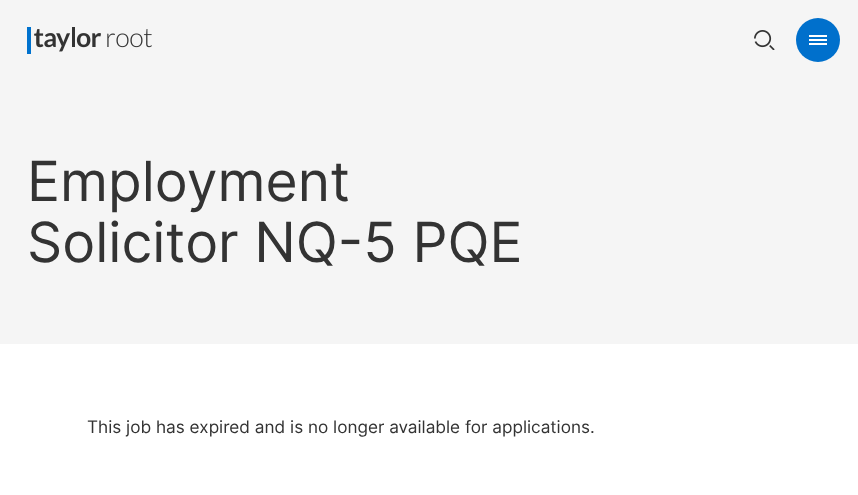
<svg xmlns="http://www.w3.org/2000/svg" width="858" height="495" viewBox="0 0 858 495">
  <rect width="100%" height="100%" fill="#fff"/>
  <path d="M0 0h858v344H0z" fill="#f5f5f5"/>
  <image x="27" y="27" width="125" height="27" href="img/1.png"/>
  <image x="754" y="30" width="21" height="20" href="img/2.png"/>
  <circle cx="818" cy="40" r="22" fill="#0070cc"/>
  <path d="M809 35h18v2H809z" fill="#fff"/>
  <path d="M809 39h18v2H809z" fill="#fff"/>
  <path d="M809 43h18v2H809z" fill="#fff"/>
  <g font-family="Inter" font-size="55.25" fill="#333">
    <text x="27" y="201">Employment</text>
    <text x="27" y="262">Solicitor NQ-5 PQE</text>
  </g>
  <text x="87" y="433" font-family="Inter" font-size="17.2" fill="#333">This job has expired and is no longer available for applications.</text>
</svg>
